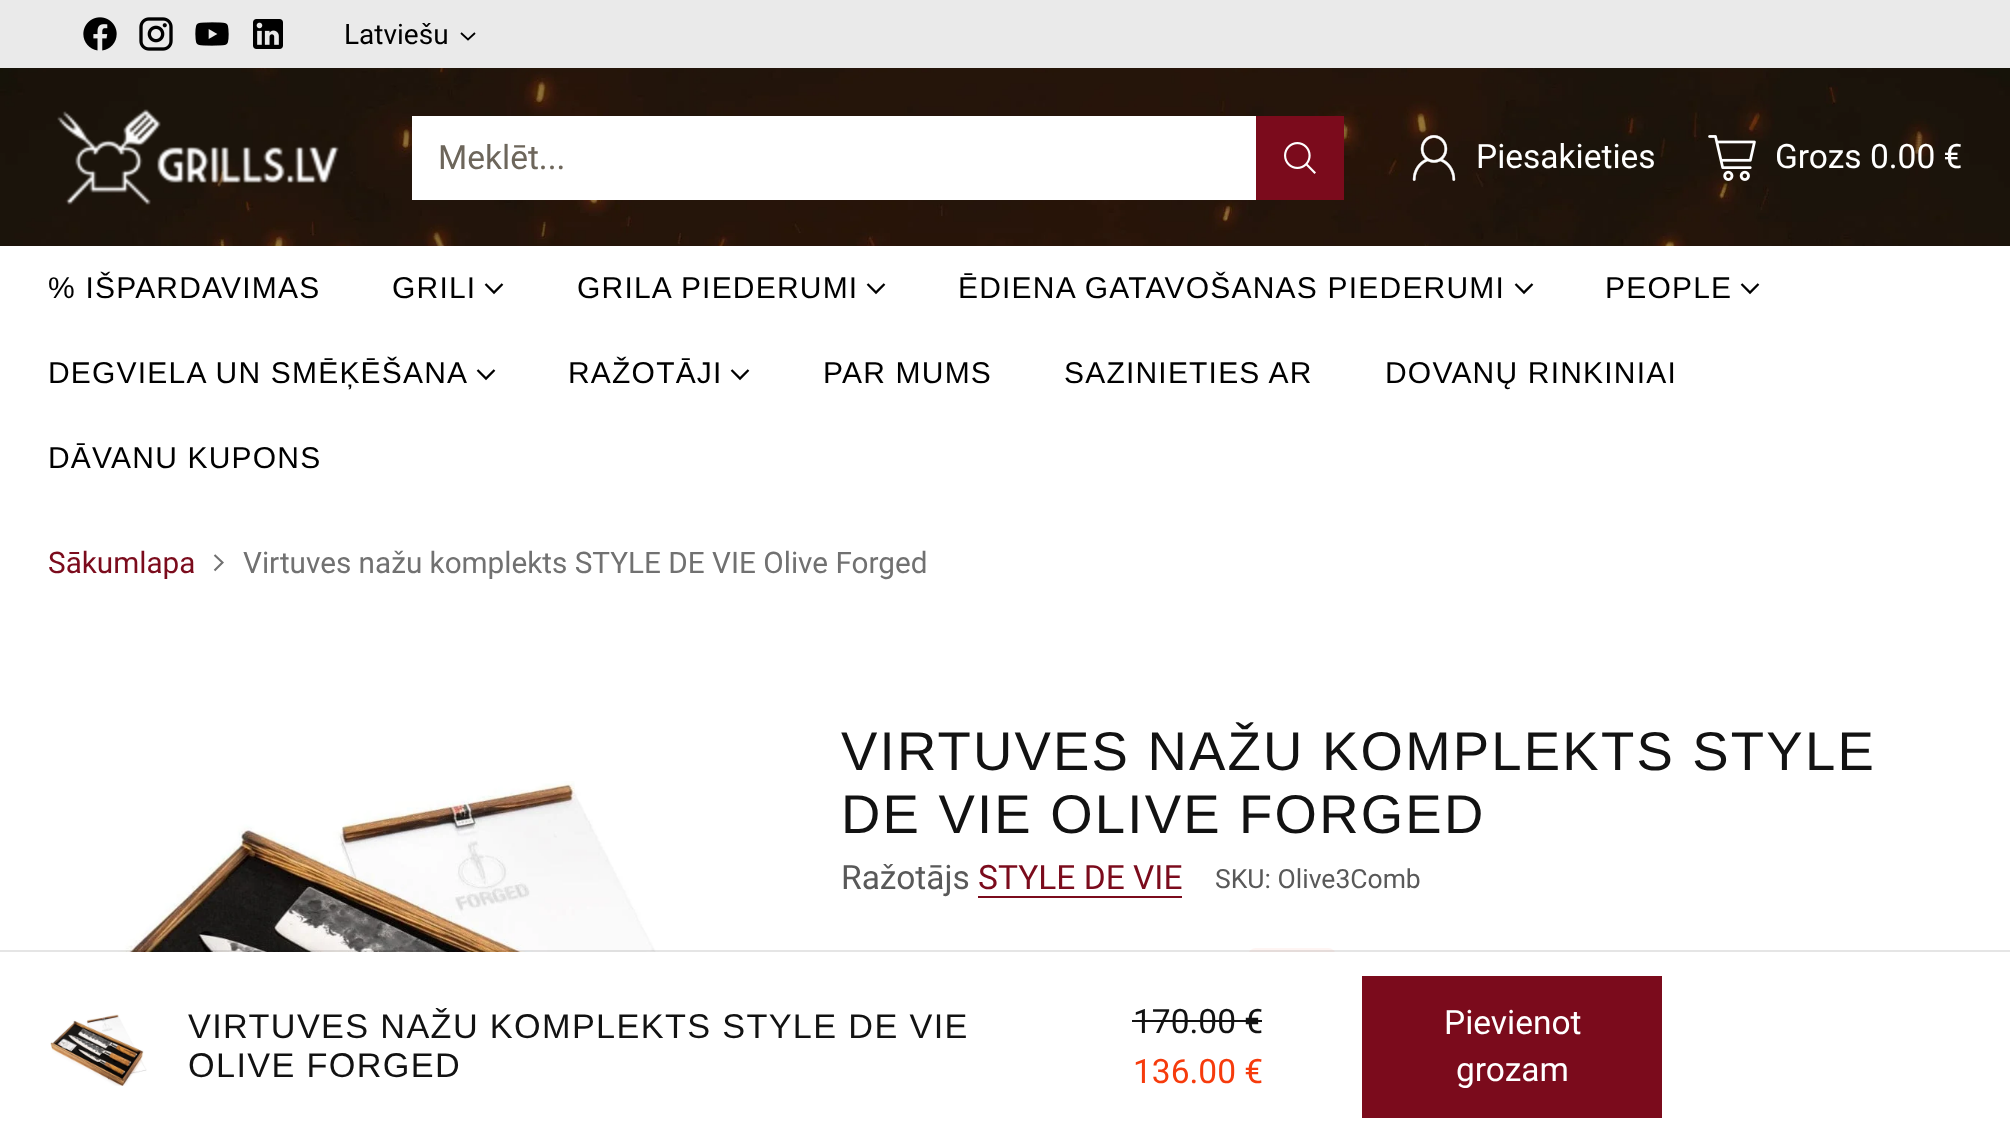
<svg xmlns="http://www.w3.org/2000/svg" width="2010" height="1141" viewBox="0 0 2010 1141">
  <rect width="100%" height="100%" fill="#fff"/>
  <path d="M0 0h2010v68H0z" fill="#eaeaea"/>
  <image x="83" y="17" width="34" height="34" href="img/1.png"/>
  <image x="139" y="17" width="34" height="34" href="img/2.png"/>
  <image x="195" y="22" width="34" height="24" href="img/3.png"/>
  <image x="253" y="19" width="30" height="30" href="img/4.png"/>
  <path d="M461 33L468 39.5L475 33" fill="none" stroke="#000" stroke-width="1.8"/>
  <image x="0" y="68" width="2010" height="178" href="img/5.png"/>
  <image x="57" y="109" width="282" height="96" href="img/6.png"/>
  <path d="M412 116h844v84H412z" fill="#fff"/>
  <path d="M1256 116h88v84H1256z" fill="#7b0b1c"/>
  <image x="1284" y="142" width="32" height="32" href="img/7.png"/>
  <image x="1412" y="135" width="44" height="46" href="img/8.png"/>
  <image x="1708" y="135" width="48" height="46" href="img/9.png"/>
  <path d="M485.5 284L494 292.5L502.5 284" fill="none" stroke="#000" stroke-width="2.3"/>
  <path d="M867.5 284L876 292.5L884.5 284" fill="none" stroke="#000" stroke-width="2.3"/>
  <path d="M1515.5 284L1524 292.5L1532.5 284" fill="none" stroke="#000" stroke-width="2.3"/>
  <path d="M1741.5 284L1750 292.5L1758.5 284" fill="none" stroke="#000" stroke-width="2.3"/>
  <path d="M477.5 370L486 378.5L494.5 370" fill="none" stroke="#000" stroke-width="2.3"/>
  <path d="M731.5 370L740 378.5L748.5 370" fill="none" stroke="#000" stroke-width="2.3"/>
  <path d="M214.5 570.5L222.5 562.5L214.5 555" fill="none" stroke="#717171" stroke-width="2.1"/>
  <path d="M978 896h204v2H978z" fill="#7b0b1c"/>
  <rect x="1248" y="948" width="88" height="50" rx="8" fill="#fff5f3"/>
  <path d="M1248 952h88v46H1248z" fill="#fff"/>
  <image x="50" y="1014" width="97" height="72" href="img/10.png"/>
  <path d="M1132 1020h130v2H1132z" fill="#121212"/>
  <image x="65" y="781" width="695" height="171" href="img/11.png"/>
  <path d="M-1 951h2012v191H-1z" fill="none" stroke="#0000001a" stroke-width="2"/>
  <path d="M1362 976h300v142H1362z" fill="#7b0b1c"/>
  <text x="344" y="44" font-family="Roboto" font-size="28" fill="#000">Latviešu</text>
  <text x="438" y="169" font-family="Roboto" font-size="33.5" fill="#6d665b">Meklēt...</text>
  <g font-family="Roboto" font-size="33.5" fill="#fff">
    <text x="1476" y="168">Piesakieties</text>
    <text x="1775" y="168">Grozs 0.00 €</text>
  </g>
  <g font-family="Liberation Sans" font-size="30" letter-spacing="1.2" fill="#000">
    <text x="48" y="298">% IŠPARDAVIMAS</text>
    <text x="392" y="298">GRILI</text>
    <text x="577" y="298">GRILA PIEDERUMI</text>
    <text x="958" y="298">ĒDIENA GATAVOŠANAS PIEDERUMI</text>
    <text x="1605" y="298">PEOPLE</text>
    <text x="48" y="383">DEGVIELA UN SMĒĶĒŠANA</text>
    <text x="568" y="383">RAŽOTĀJI</text>
    <text x="823" y="383">PAR MUMS</text>
    <text x="1064" y="383">SAZINIETIES AR</text>
    <text x="1385" y="383">DOVANŲ RINKINIAI</text>
    <text x="48" y="468">DĀVANU KUPONS</text>
  </g>
  <text x="48" y="573" font-family="Roboto" font-size="29.7" fill="#7b0b1c">Sākumlapa</text>
  <text x="243" y="573" font-family="Roboto" font-size="29.7" fill="#717171">Virtuves nažu komplekts STYLE DE VIE Olive Forged</text>
  <g font-family="Liberation Sans" font-size="54.5" letter-spacing="2.2" fill="#121212">
    <text x="841" y="770">VIRTUVES NAŽU KOMPLEKTS STYLE</text>
    <text x="841" y="833">DE VIE OLIVE FORGED</text>
  </g>
  <text x="841" y="889" font-family="Roboto" font-size="33.5" fill="#595959">Ražotājs</text>
  <text x="978" y="889" font-family="Roboto" font-size="33.5" fill="#7b0b1c">STYLE DE VIE</text>
  <text x="1215" y="888" font-family="Roboto" font-size="26.5" fill="#595959">SKU: Olive3Comb</text>
  <g font-family="Liberation Sans" font-size="34.25" letter-spacing="1.35" fill="#121212">
    <text x="188" y="1038">VIRTUVES NAŽU KOMPLEKTS STYLE DE VIE</text>
    <text x="188" y="1077">OLIVE FORGED</text>
  </g>
  <text x="1133" y="1033" font-family="Roboto" font-size="33.5" fill="#121212">170.00 €</text>
  <text x="1133" y="1083" font-family="Roboto" font-size="33.5" fill="#f63b0c">136.00 €</text>
  <g font-family="Roboto" font-size="33.5" fill="#fff">
    <text x="1444" y="1034">Pievienot</text>
    <text x="1456" y="1081">grozam</text>
  </g>
</svg>
